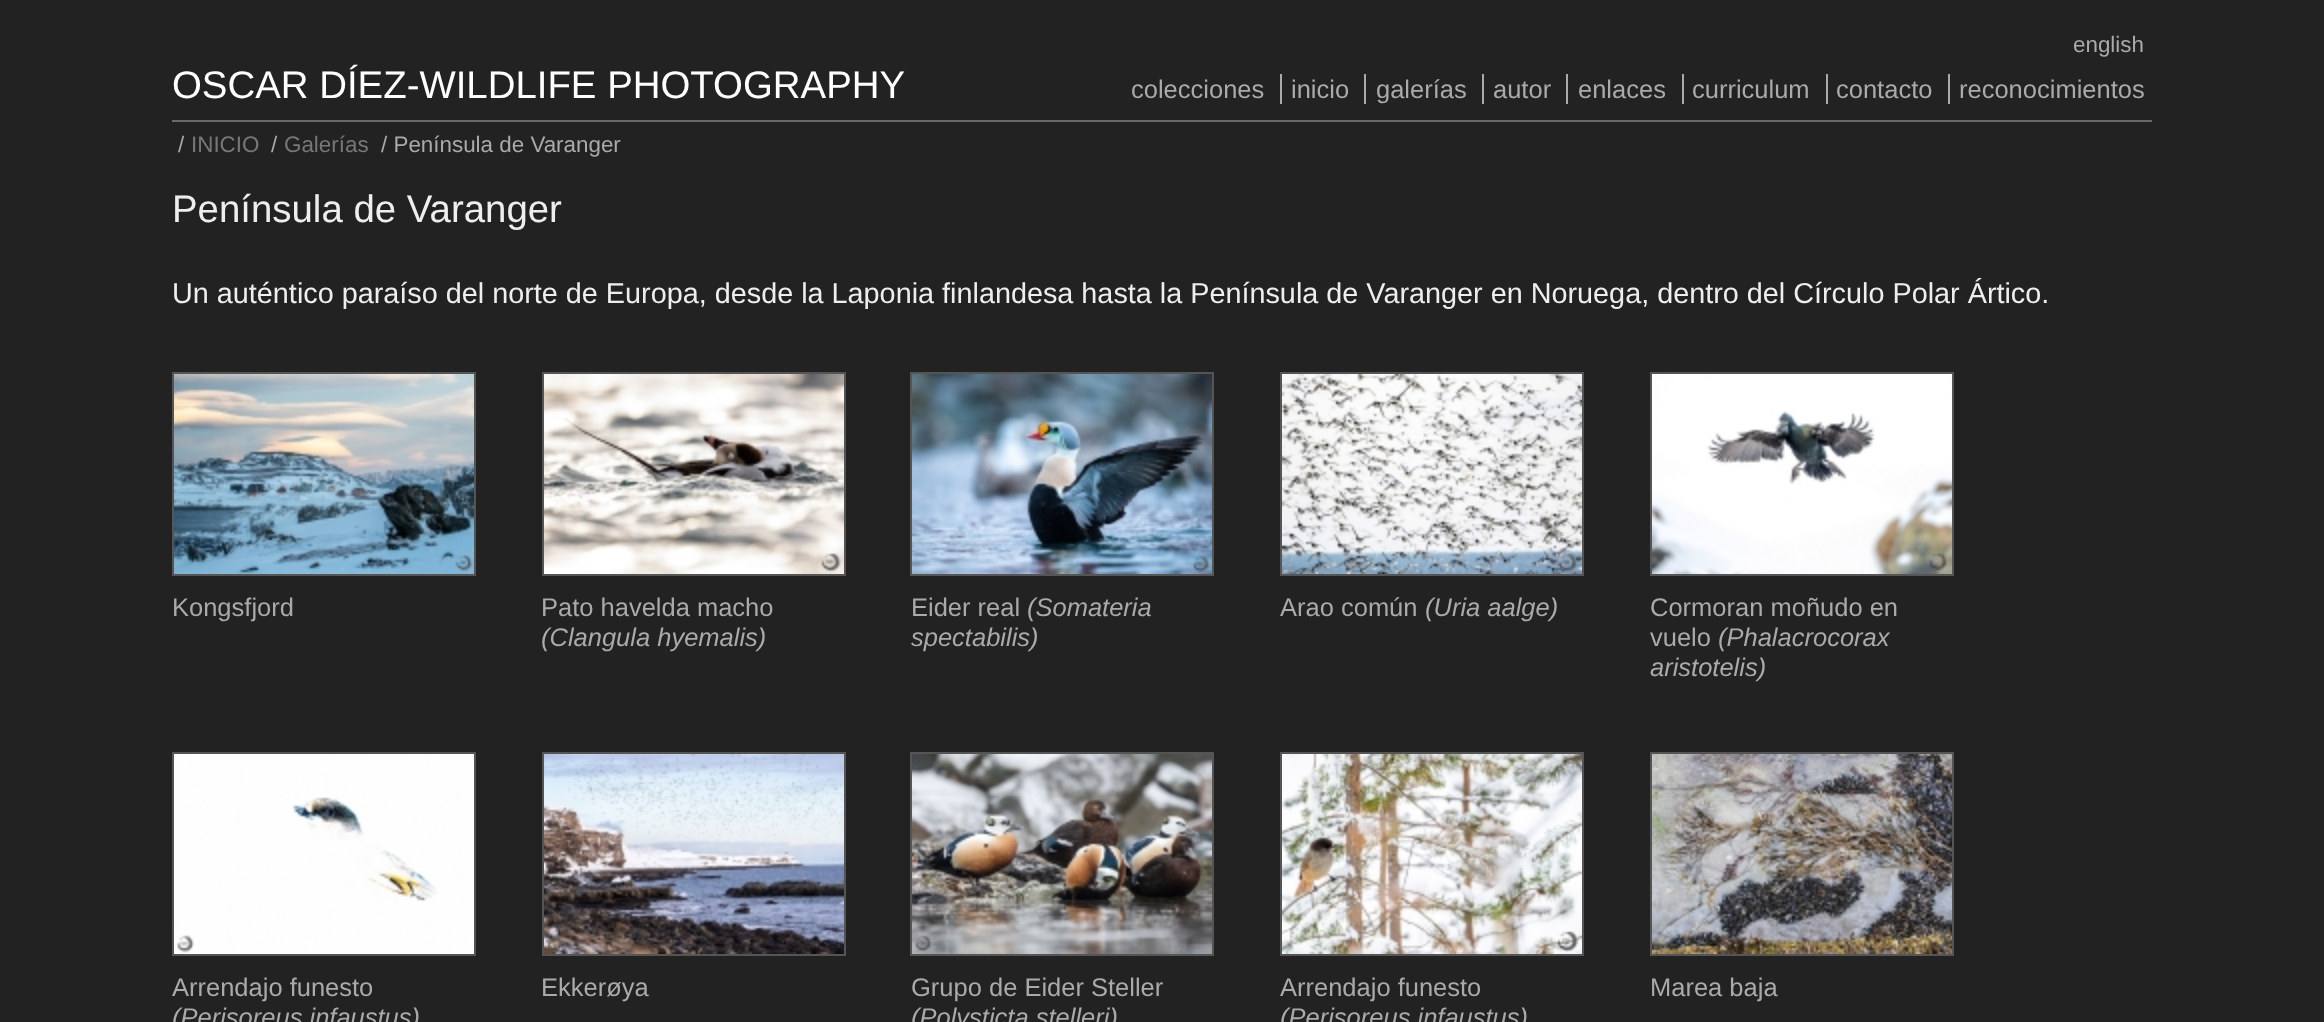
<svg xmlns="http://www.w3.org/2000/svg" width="2324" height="1022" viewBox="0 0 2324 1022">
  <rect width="100%" height="100%" fill="#222"/>
  <path d="M172 120h1980v2H172z" fill="#6a6a6a"/>
  <path d="M1280 74h2v30H1280z" fill="#aaa"/>
  <path d="M1364 74h2v30H1364z" fill="#aaa"/>
  <path d="M1482 74h2v30H1482z" fill="#aaa"/>
  <path d="M1566 74h2v30H1566z" fill="#aaa"/>
  <path d="M1682 74h2v30H1682z" fill="#aaa"/>
  <path d="M1826 74h2v30H1826z" fill="#aaa"/>
  <path d="M1948 74h2v30H1948z" fill="#aaa"/>
  <path d="M173 373h302v202H173z" fill="none" stroke="#555" stroke-width="2"/>
  <image x="174" y="374" width="300" height="200" href="img/1.png"/>
  <path d="M543 373h302v202H543z" fill="none" stroke="#555" stroke-width="2"/>
  <image x="544" y="374" width="300" height="200" href="img/2.png"/>
  <path d="M911 373h302v202H911z" fill="none" stroke="#555" stroke-width="2"/>
  <image x="912" y="374" width="300" height="200" href="img/3.png"/>
  <path d="M1281 373h302v202H1281z" fill="none" stroke="#555" stroke-width="2"/>
  <image x="1282" y="374" width="300" height="200" href="img/4.png"/>
  <path d="M1651 373h302v202H1651z" fill="none" stroke="#555" stroke-width="2"/>
  <image x="1652" y="374" width="300" height="200" href="img/5.png"/>
  <path d="M173 753h302v202H173z" fill="none" stroke="#555" stroke-width="2"/>
  <image x="174" y="754" width="300" height="200" href="img/6.png"/>
  <path d="M543 753h302v202H543z" fill="none" stroke="#555" stroke-width="2"/>
  <image x="544" y="754" width="300" height="200" href="img/7.png"/>
  <path d="M911 753h302v202H911z" fill="none" stroke="#555" stroke-width="2"/>
  <image x="912" y="754" width="300" height="200" href="img/8.png"/>
  <path d="M1281 753h302v202H1281z" fill="none" stroke="#555" stroke-width="2"/>
  <image x="1282" y="754" width="300" height="200" href="img/9.png"/>
  <path d="M1651 753h302v202H1651z" fill="none" stroke="#555" stroke-width="2"/>
  <image x="1652" y="754" width="300" height="200" href="img/10.png"/>
  <text x="2073" y="52" font-family="Liberation Sans" font-size="22.4" fill="#aaa">english</text>
  <text x="172" y="98" font-family="Liberation Sans" font-size="38.4" fill="#fff">OSCAR DÍEZ-WILDLIFE PHOTOGRAPHY</text>
  <g font-family="Liberation Sans" font-size="25.5" fill="#aaa">
    <text x="1131" y="98">colecciones</text>
    <text x="1291" y="98">inicio</text>
    <text x="1376" y="98">galerías</text>
    <text x="1493" y="98">autor</text>
    <text x="1578" y="98">enlaces</text>
    <text x="1692" y="98">curriculum</text>
    <text x="1836" y="98">contacto</text>
    <text x="1959" y="98">reconocimientos</text>
  </g>
  <text x="178" y="152" font-family="Liberation Sans" font-size="22.4" fill="#aaa">/</text>
  <text x="191" y="152" font-family="Liberation Sans" font-size="22.4" fill="#777">INICIO</text>
  <text x="271" y="152" font-family="Liberation Sans" font-size="22.4" fill="#aaa">/</text>
  <text x="284" y="152" font-family="Liberation Sans" font-size="22.4" fill="#777">Galerías</text>
  <text x="381" y="152" font-family="Liberation Sans" font-size="22.4" fill="#aaa">/ Península de Varanger</text>
  <text x="172" y="222" font-family="Liberation Sans" font-size="38.4" fill="#eee">Península de Varanger</text>
  <text x="172" y="303" font-family="Liberation Sans" font-size="28.8" fill="#eee">Un auténtico paraíso del norte de Europa, desde la Laponia finlandesa hasta la Península de Varanger en Noruega, dentro del Círculo Polar Ártico.</text>
  <g font-family="Liberation Sans" font-size="25.5" fill="#aaa">
    <text x="172" y="616">Kongsfjord</text>
    <text x="541" y="616">Pato havelda macho</text>
  </g>
  <text x="541" y="646" font-family="Liberation Sans" font-size="25.5" font-style="italic" fill="#aaa">(Clangula hyemalis)</text>
  <text x="911" y="616" font-family="Liberation Sans" font-size="25.5" fill="#aaa">Eider real</text>
  <g font-family="Liberation Sans" font-size="25.5" font-style="italic" fill="#aaa">
    <text x="1027" y="616">(Somateria</text>
    <text x="911" y="646">spectabilis)</text>
  </g>
  <text x="1280" y="616" font-family="Liberation Sans" font-size="25.5" fill="#aaa">Arao común</text>
  <text x="1425" y="616" font-family="Liberation Sans" font-size="25.5" font-style="italic" fill="#aaa">(Uria aalge)</text>
  <g font-family="Liberation Sans" font-size="25.5" fill="#aaa">
    <text x="1650" y="616">Cormoran moñudo en</text>
    <text x="1650" y="646">vuelo</text>
  </g>
  <g font-family="Liberation Sans" font-size="25.5" font-style="italic" fill="#aaa">
    <text x="1718" y="646">(Phalacrocorax</text>
    <text x="1650" y="676">aristotelis)</text>
  </g>
  <text x="172" y="996" font-family="Liberation Sans" font-size="25.5" fill="#aaa">Arrendajo funesto</text>
  <text x="172" y="1026" font-family="Liberation Sans" font-size="25.5" font-style="italic" fill="#aaa">(Perisoreus infaustus)</text>
  <g font-family="Liberation Sans" font-size="25.5" fill="#aaa">
    <text x="541" y="996">Ekkerøya</text>
    <text x="911" y="996">Grupo de Eider Steller</text>
  </g>
  <text x="911" y="1026" font-family="Liberation Sans" font-size="25.5" font-style="italic" fill="#aaa">(Polysticta stelleri)</text>
  <text x="1280" y="996" font-family="Liberation Sans" font-size="25.5" fill="#aaa">Arrendajo funesto</text>
  <text x="1280" y="1026" font-family="Liberation Sans" font-size="25.5" font-style="italic" fill="#aaa">(Perisoreus infaustus)</text>
  <text x="1650" y="996" font-family="Liberation Sans" font-size="25.5" fill="#aaa">Marea baja</text>
</svg>
